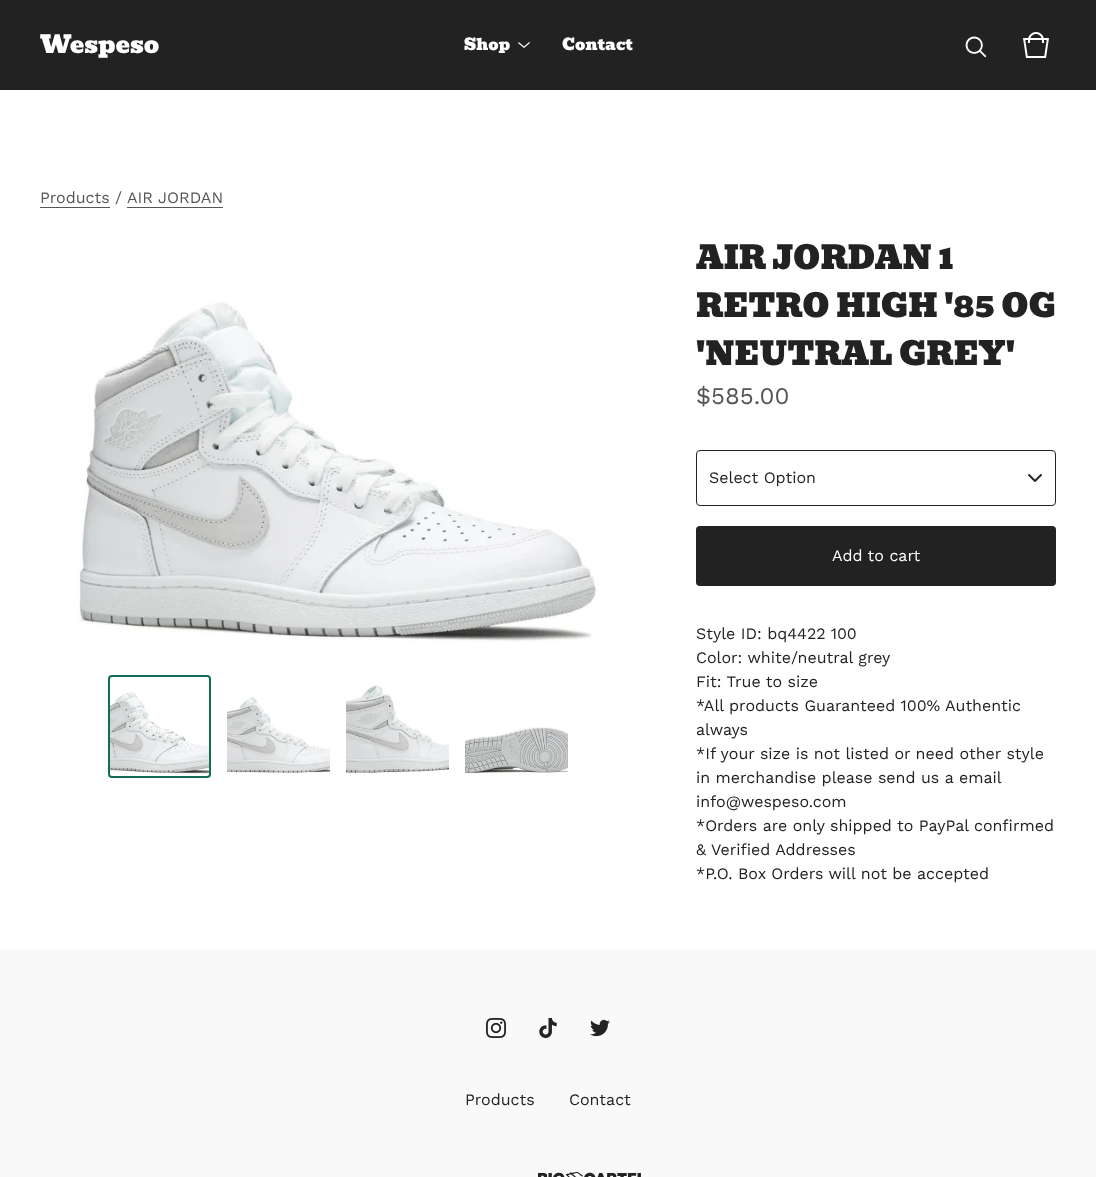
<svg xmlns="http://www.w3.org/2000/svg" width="1096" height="1177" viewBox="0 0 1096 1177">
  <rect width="100%" height="100%" fill="#fff"/>
  <path d="M0 0h1096v90H0z" fill="#222"/>
  <image x="518" y="42" width="12" height="6" href="img/1.png"/>
  <image x="965" y="36" width="22" height="22" href="img/2.png"/>
  <image x="1023" y="32" width="26" height="26" href="img/3.png"/>
  <path d="M40 207h70v1H40z" fill="#555"/>
  <path d="M127 207h96v1H127z" fill="#555"/>
  <image x="78" y="302" width="519" height="341" href="img/4.png"/>
  <image x="108" y="691" width="103" height="84" href="img/5.png"/>
  <rect x="109" y="676" width="101" height="101" rx="3" fill="none" stroke="#116e56" stroke-width="2"/>
  <image x="227" y="696" width="103" height="78" href="img/6.png"/>
  <image x="346" y="685" width="103" height="89" href="img/7.png"/>
  <image x="465" y="727" width="103" height="48" href="img/8.png"/>
  <image x="1028" y="474" width="14" height="8" href="img/9.png"/>
  <rect x="696.5" y="450.5" width="359" height="55" rx="3.5" fill="none" stroke="#222"/>
  <rect x="696" y="526" width="360" height="60" rx="4" fill="#222"/>
  <path d="M0 950h1096v227H0z" fill="#f9f9f9"/>
  <image x="486" y="1018" width="20" height="20" href="img/10.png"/>
  <image x="539" y="1018" width="18" height="20" href="img/11.png"/>
  <image x="590" y="1019" width="20" height="18" href="img/12.png"/>
  <image x="538" y="1172" width="103" height="5" href="img/13.png"/>
  <text x="40" y="53" font-family="Bevan" font-size="24" fill="#fff">Wespeso</text>
  <g font-family="Bevan" font-size="16" fill="#fff">
    <text x="464" y="50">Shop</text>
    <text x="562" y="50">Contact</text>
  </g>
  <g font-family="Work Sans" font-size="16" fill="#555">
    <text x="40" y="203">Products</text>
    <text x="115" y="203">/</text>
    <text x="127" y="203">AIR JORDAN</text>
  </g>
  <g font-family="Bevan" font-size="32" fill="#222">
    <text x="696" y="269">AIR JORDAN 1</text>
    <text x="696" y="317">RETRO HIGH '85 OG</text>
    <text x="696" y="365">'NEUTRAL GREY'</text>
  </g>
  <text x="696" y="404" font-family="Work Sans" font-size="24" fill="#555">$585.00</text>
  <text x="709" y="483" font-family="Work Sans" font-size="16" fill="#222">Select Option</text>
  <text x="832" y="561" font-family="Work Sans" font-size="16" fill="#fff">Add to cart</text>
  <g font-family="Work Sans" font-size="16" fill="#222">
    <text x="696" y="639">Style ID: bq4422 100</text>
    <text x="696" y="663">Color: white/neutral grey</text>
    <text x="696" y="687">Fit: True to size</text>
    <text x="696" y="711">*All products Guaranteed 100% Authentic</text>
    <text x="696" y="735">always</text>
    <text x="696" y="759">*If your size is not listed or need other style</text>
    <text x="696" y="783">in merchandise please send us a email</text>
    <text x="696" y="807">info@wespeso.com</text>
    <text x="696" y="831">*Orders are only shipped to PayPal confirmed</text>
    <text x="696" y="855">&amp; Verified Addresses</text>
    <text x="696" y="879">*P.O. Box Orders will not be accepted</text>
    <text x="465" y="1105">Products</text>
    <text x="569" y="1105">Contact</text>
  </g>
</svg>
